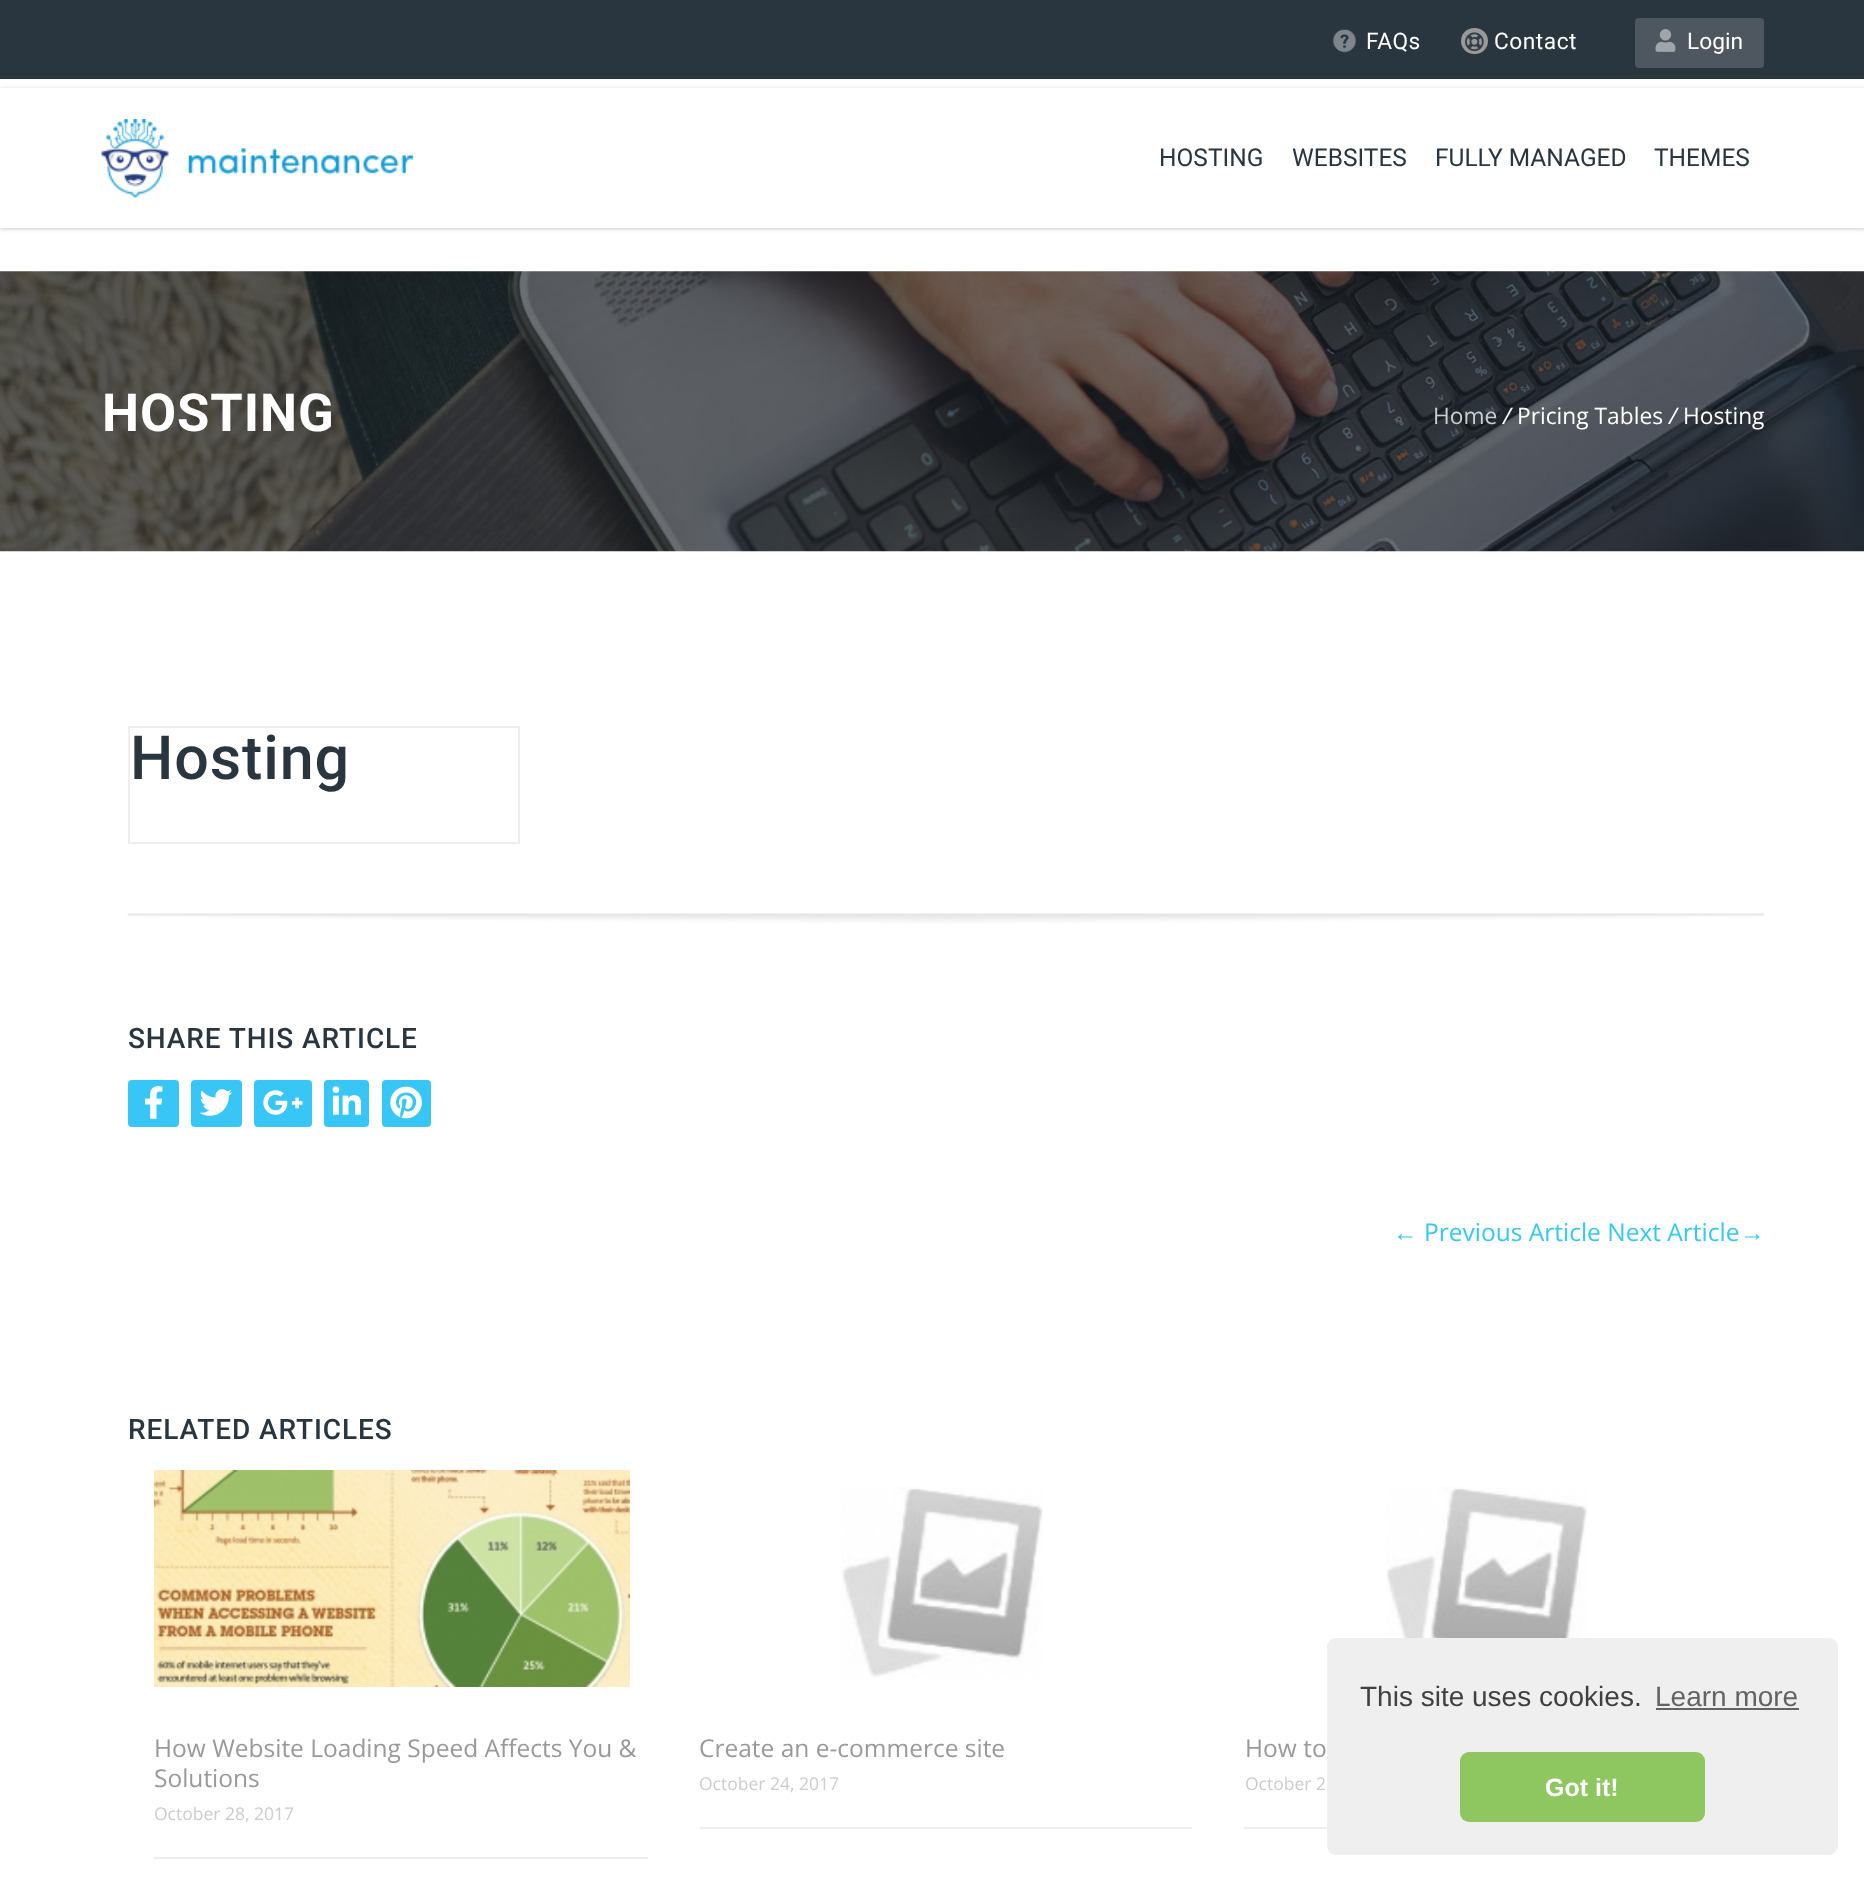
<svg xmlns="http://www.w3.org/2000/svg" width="1864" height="1883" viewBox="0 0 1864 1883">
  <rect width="100%" height="100%" fill="#fff"/>
  <path d="M0 0h1864v79H0z" fill="#2a363f"/>
  <image x="1332" y="29" width="25" height="24" href="img/1.png"/>
  <rect x="1461" y="28" width="27" height="26" rx="13" fill="#999"/>
  <image x="1465" y="32" width="19" height="20" href="img/2.png"/>
  <rect x="1635" y="18" width="129" height="50" rx="4" fill="#4e5760"/>
  <image x="1655" y="29" width="21" height="23" href="img/3.png"/>
  <path d="M0 89h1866v140H0z" fill="#00000033" filter="blur(2px)"/>
  <path d="M0 88h1864v140H0z" fill="#fff"/>
  <image x="101" y="119" width="313" height="79" href="img/4.png"/>
  <image x="0" y="271" width="1864" height="281" href="img/5.png"/>
  <path d="M129 727h390v116H129z" fill="none" stroke="#eee" stroke-width="2"/>
  <image x="127" y="913" width="1637" height="11" href="img/6.png"/>
  <rect x="128" y="1080" width="51" height="47" rx="4" fill="#37c6f5"/>
  <image x="144" y="1086" width="19" height="33" href="img/7.png"/>
  <rect x="191" y="1080" width="51" height="47" rx="4" fill="#37c6f5"/>
  <image x="199" y="1089" width="33" height="27" href="img/8.png"/>
  <rect x="254" y="1080" width="58" height="47" rx="4" fill="#37c6f5"/>
  <image x="263" y="1090" width="40" height="25" href="img/9.png"/>
  <rect x="324" y="1080" width="45" height="47" rx="4" fill="#37c6f5"/>
  <image x="332" y="1086" width="30" height="29" href="img/10.png"/>
  <rect x="382" y="1080" width="49" height="47" rx="4" fill="#37c6f5"/>
  <image x="390" y="1086" width="32" height="33" href="img/11.png"/>
  <path d="M154 1857h494v2H154z" fill="#eee"/>
  <image x="154" y="1470" width="476" height="217" href="img/12.png"/>
  <path d="M700 1827h492v2H700z" fill="#eee"/>
  <image x="841" y="1487" width="202" height="191" href="img/13.png"/>
  <path d="M1244 1827h83v2H1244z" fill="#eee"/>
  <image x="1386" y="1487" width="202" height="151" href="img/14.png"/>
  <rect x="1327" y="1638" width="511" height="217" rx="9" fill="#efefef"/>
  <path d="M1656 1708h143v2H1656z" fill="#636363"/>
  <rect x="1460" y="1752" width="245" height="70" rx="9" fill="#8ec760"/>
  <g font-family="Roboto" font-size="22.75" letter-spacing="0.5" fill="#fff">
    <text x="1366" y="49">FAQs</text>
    <text x="1494" y="49">Contact</text>
  </g>
  <text x="1687" y="49" font-family="Roboto" font-size="22.75" fill="#fff">Login</text>
  <g font-family="Roboto" font-size="24.5" fill="#2a363f">
    <text x="1159" y="166">HOSTING</text>
    <text x="1292" y="166">WEBSITES</text>
    <text x="1435" y="166">FULLY MANAGED</text>
    <text x="1654" y="166">THEMES</text>
  </g>
  <text x="102" y="431" font-family="Roboto" font-size="52.5" font-weight="bold" letter-spacing="0.9" fill="#fff">HOSTING</text>
  <text x="1433" y="424" font-family="Open Sans" font-size="22.75" fill="#ccc">Home</text>
  <text x="1503" y="424" font-family="Open Sans" font-size="22.75" font-style="italic" fill="#fff">/</text>
  <text x="1517" y="424" font-family="Open Sans" font-size="22.75" fill="#fff">Pricing Tables</text>
  <text x="1669" y="424" font-family="Open Sans" font-size="22.75" font-style="italic" fill="#fff">/</text>
  <text x="1683" y="424" font-family="Open Sans" font-size="22.75" fill="#fff">Hosting</text>
  <text x="130" y="779" font-family="Roboto" font-size="61" font-weight="500" letter-spacing="0.9" fill="#2a363f">Hosting</text>
  <text x="128" y="1048" font-family="Roboto" font-size="28" font-weight="500" letter-spacing="0.9" fill="#2a363f">SHARE THIS ARTICLE</text>
  <text x="1393" y="1241" font-family="Liberation Sans" font-size="24.5" fill="#37c6f5">←</text>
  <text x="1424" y="1241" font-family="Open Sans" font-size="24.5" fill="#37c6f5">Previous Article Next Article</text>
  <text x="1740" y="1241" font-family="Liberation Sans" font-size="24.5" fill="#37c6f5">→</text>
  <text x="128" y="1439" font-family="Roboto" font-size="28" font-weight="500" letter-spacing="0.9" fill="#2a363f">RELATED ARTICLES</text>
  <g font-family="Open Sans" font-size="24.5" fill="#999">
    <text x="154" y="1757">How Website Loading Speed Affects You &amp;</text>
    <text x="154" y="1787">Solutions</text>
  </g>
  <text x="154" y="1820" font-family="Open Sans" font-size="17.5" fill="#ccc">October 28, 2017</text>
  <text x="699" y="1757" font-family="Open Sans" font-size="24.5" fill="#999">Create an e-commerce site</text>
  <text x="699" y="1790" font-family="Open Sans" font-size="17.5" fill="#ccc">October 24, 2017</text>
  <text x="1245" y="1757" font-family="Open Sans" font-size="24.5" fill="#999">How to</text>
  <text x="1245" y="1790" font-family="Open Sans" font-size="17.5" fill="#ccc">October 2</text>
  <text x="1360" y="1706" font-family="Liberation Sans" font-size="28" fill="#404040">This site uses cookies.</text>
  <text x="1655" y="1706" font-family="Liberation Sans" font-size="28" fill="#636363">Learn more</text>
  <text x="1545" y="1796" font-family="Liberation Sans" font-size="25" font-weight="bold" fill="#fff">Got it!</text>
</svg>
